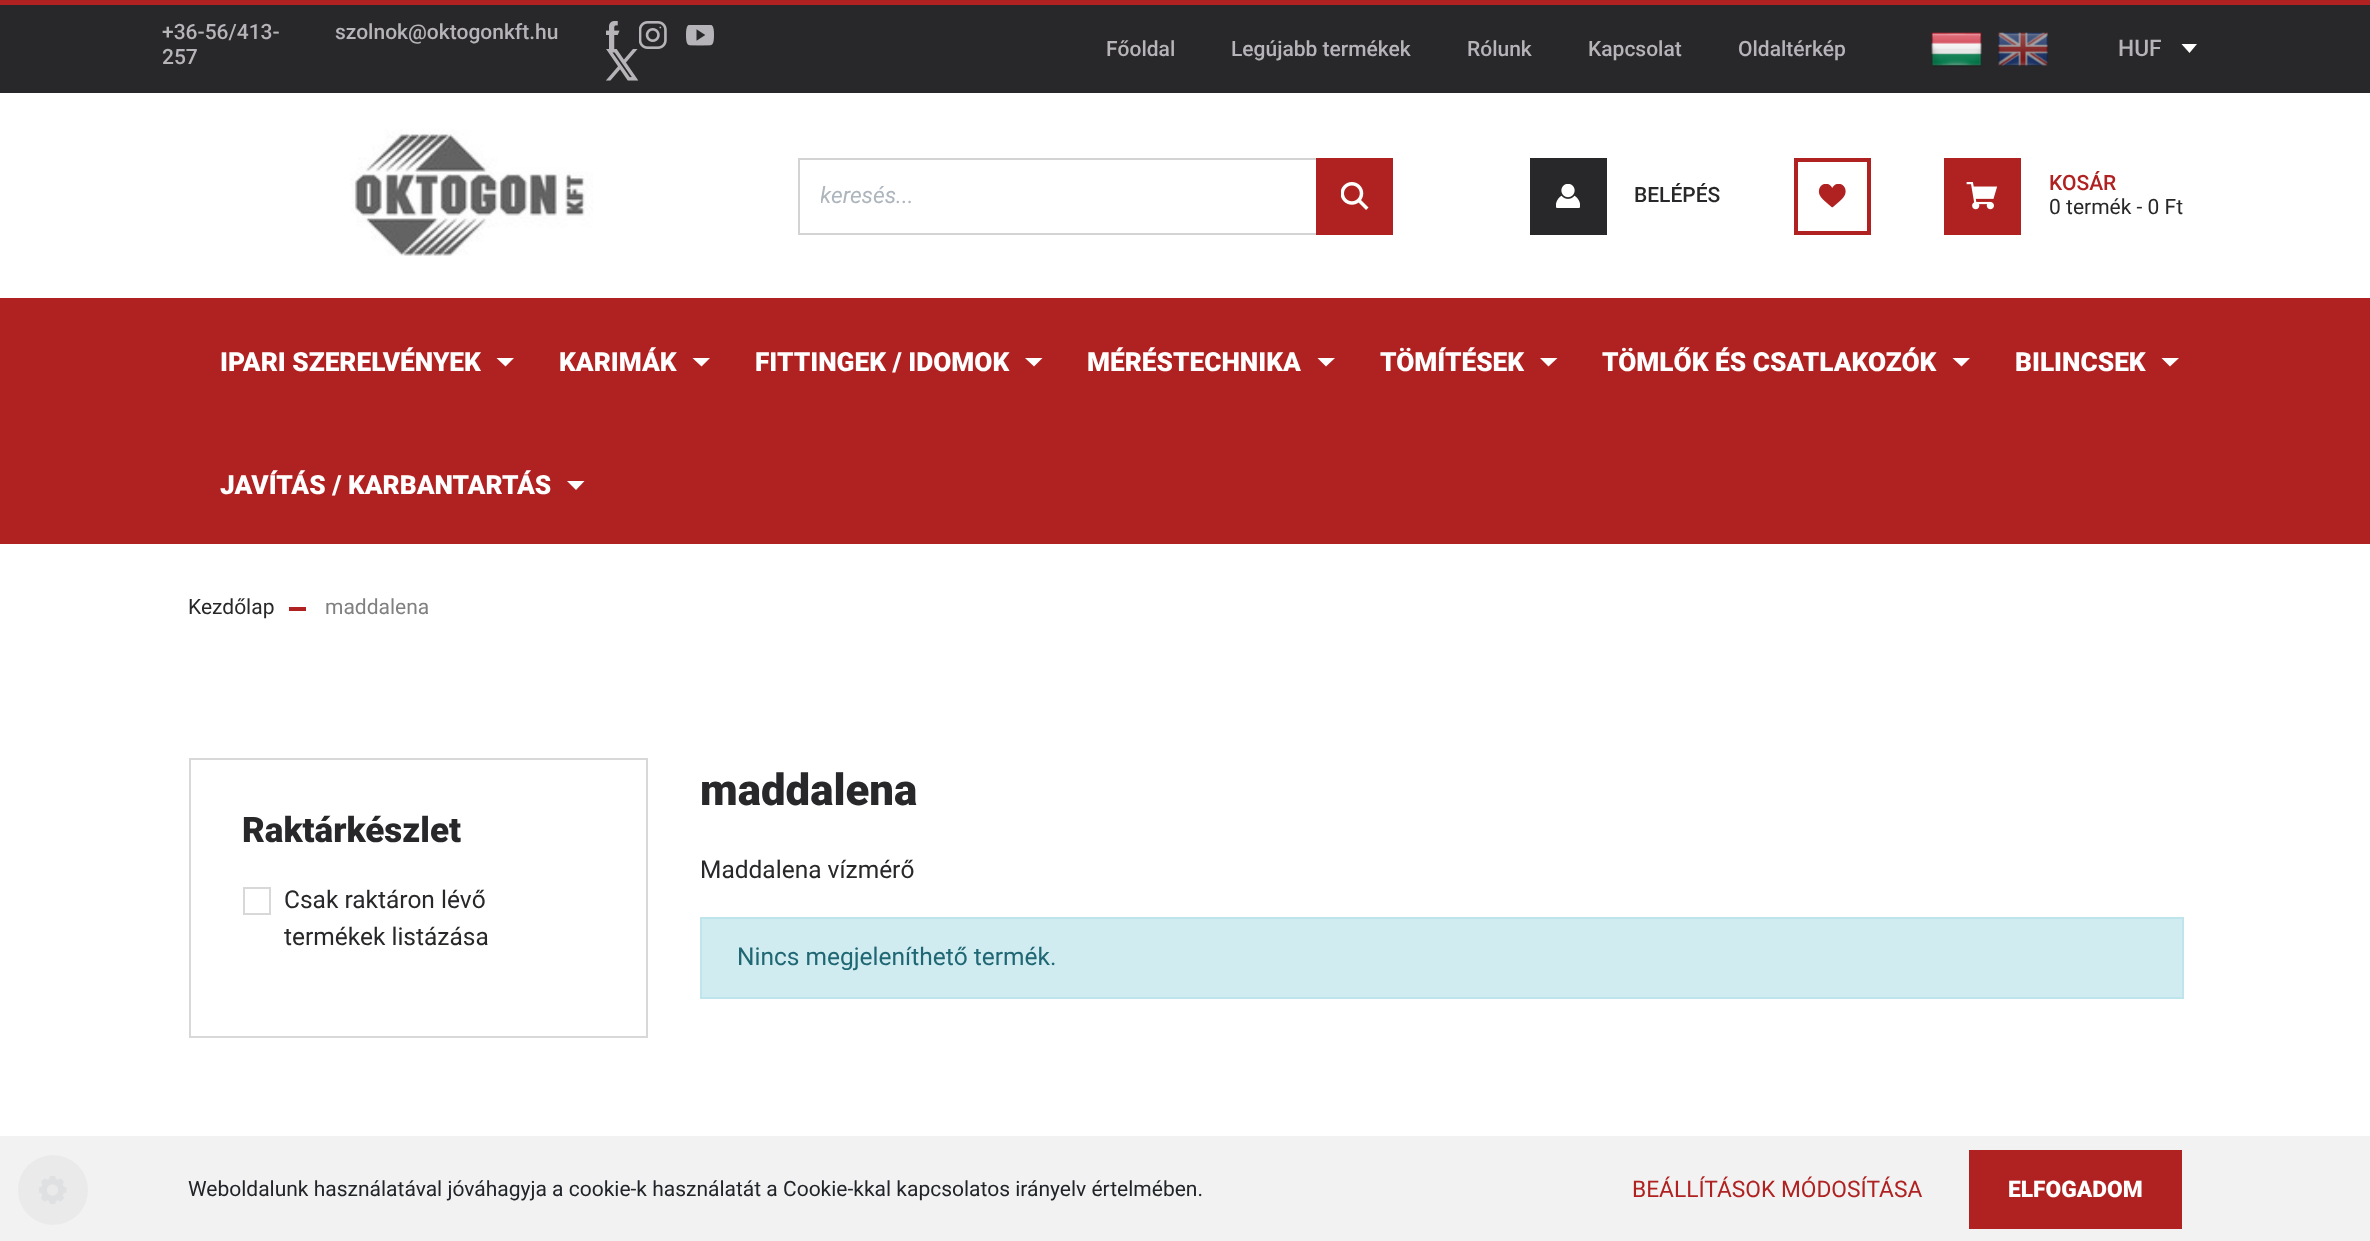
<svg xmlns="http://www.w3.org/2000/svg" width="2370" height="1241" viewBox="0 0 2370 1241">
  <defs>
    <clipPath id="clip1"><path d="M821 182h483v26H821z"/></clipPath>
  </defs>
  <rect width="100%" height="100%" fill="#fff"/>
  <path d="M0 1136h2370v105H0z" fill="#f2f2f2"/>
  <path d="M0 0h2370v5H0z" fill="#b02121"/>
  <path d="M0 5h2370v88H0z" fill="#282729"/>
  <image x="606" y="21" width="14" height="28" href="img/1.png"/>
  <image x="639" y="21" width="28" height="28" href="img/2.png"/>
  <image x="686" y="25" width="28" height="21" href="img/3.png"/>
  <image x="606" y="49" width="33" height="32" href="img/4.png"/>
  <image x="1931" y="32" width="51" height="35" href="img/5.png"/>
  <image x="1998" y="32" width="50" height="34" href="img/6.png"/>
  <path d="M2181.5 44L2189.5 53L2197 44Z" fill="#fff"/>
  <image x="350" y="129" width="243" height="127" href="img/7.png"/>
  <path d="M799 159h593v75H799z" fill="none" stroke="#d3d3d3" stroke-width="2"/>
  <path d="M1316 158h77v77H1316z" fill="#b02121"/>
  <image x="1341" y="182" width="28" height="28" href="img/8.png"/>
  <path d="M1530 158h77v77H1530z" fill="#282729"/>
  <image x="1556" y="184" width="24" height="24" href="img/9.png"/>
  <path d="M1796 160h73v73H1796z" fill="none" stroke="#b02121" stroke-width="4"/>
  <image x="1818" y="184" width="28" height="24" href="img/10.png"/>
  <path d="M1944 158h77v77H1944z" fill="#b02121"/>
  <image x="1966" y="182" width="32" height="28" href="img/11.png"/>
  <path d="M0 298h2370v246H0z" fill="#b02121"/>
  <path d="M496.5 358H514L505.5 366.5Z" fill="#fff"/>
  <path d="M692.5 358H710L701.5 366.5Z" fill="#fff"/>
  <path d="M1025 358H1042.5L1034 366.5Z" fill="#fff"/>
  <path d="M1317.5 358H1335L1326 366.5Z" fill="#fff"/>
  <path d="M1540 358H1557.5L1548.5 366.5Z" fill="#fff"/>
  <path d="M1952.5 358H1970L1961.5 366.5Z" fill="#fff"/>
  <path d="M2161.5 358H2179L2170 366.5Z" fill="#fff"/>
  <path d="M567 481H584.5L576 490Z" fill="#fff"/>
  <path d="M289 607h17v4H289z" fill="#b02121"/>
  <path d="M190 759h457v278H190z" fill="none" stroke="#d8d8d8" stroke-width="2"/>
  <path d="M244 888h26v26H244z" fill="none" stroke="#d8d8d8" stroke-width="2"/>
  <path d="M701 918h1482v80H701z" fill="#d1ecf1" stroke="#bee5eb" stroke-width="2"/>
  <circle cx="53" cy="1190" r="35" fill="#eaeaeb"/>
  <image x="39" y="1176" width="28" height="28" href="img/12.png"/>
  <path d="M1969 1150h213v79H1969z" fill="#b02121"/>
  <g font-family="Roboto" font-size="21" font-weight="500" fill="#b7b4b9">
    <text x="162" y="39">+36-56/413-</text>
    <text x="162" y="64">257</text>
    <text x="335" y="39">szolnok@oktogonkft.hu</text>
    <text x="1106" y="56">Főoldal</text>
    <text x="1231" y="56">Legújabb termékek</text>
    <text x="1467" y="56">Rólunk</text>
    <text x="1588" y="56">Kapcsolat</text>
    <text x="1738" y="56">Oldaltérkép</text>
  </g>
  <text x="2118" y="56" font-family="Roboto" font-size="22.75" font-weight="500" fill="#b7b4b9">HUF</text>
  <g clip-path="url(#clip1)">
    <text x="820" y="203" font-family="Roboto" font-size="22.75" font-style="italic" fill="#adb5bd">keresés...</text>
  </g>
  <text x="1634" y="202" font-family="Roboto" font-size="21" font-weight="500" fill="#282729">BELÉPÉS</text>
  <text x="2049" y="190" font-family="Roboto" font-size="21" font-weight="500" fill="#b02121">KOSÁR</text>
  <text x="2049" y="214" font-family="Roboto" font-size="21" fill="#282729">0 termék - 0 Ft</text>
  <g font-family="Roboto" font-size="26.25" font-weight="900" fill="#fff">
    <text x="220" y="371">IPARI SZERELVÉNYEK</text>
    <text x="559" y="371">KARIMÁK</text>
    <text x="755" y="371">FITTINGEK / IDOMOK</text>
    <text x="1087" y="371">MÉRÉSTECHNIKA</text>
    <text x="1380" y="371">TÖMÍTÉSEK</text>
    <text x="1602" y="371">TÖMLŐK ÉS CSATLAKOZÓK</text>
    <text x="2015" y="371">BILINCSEK</text>
    <text x="220" y="494">JAVÍTÁS / KARBANTARTÁS</text>
  </g>
  <text x="188" y="614" font-family="Roboto" font-size="21" fill="#282729">Kezdőlap</text>
  <text x="325" y="614" font-family="Roboto" font-size="21" fill="#808080">maddalena</text>
  <text x="242" y="842" font-family="Roboto" font-size="35" font-weight="900" fill="#282729">Raktárkészlet</text>
  <g font-family="Roboto" font-size="24.5" fill="#282729">
    <text x="284" y="908">Csak raktáron lévő</text>
    <text x="284" y="945">termékek listázása</text>
  </g>
  <text x="700" y="805" font-family="Roboto" font-size="43.75" font-weight="900" fill="#282729">maddalena</text>
  <text x="700" y="878" font-family="Roboto" font-size="24.5" fill="#282729">Maddalena vízmérő</text>
  <text x="737" y="965" font-family="Roboto" font-size="24.5" fill="#1f6773">Nincs megjeleníthető termék.</text>
  <text x="188" y="1196" font-family="Roboto" font-size="21" fill="#212529">Weboldalunk használatával jóváhagyja a cookie-k használatát a Cookie-kkal kapcsolatos irányelv értelmében.</text>
  <text x="1632" y="1197" font-family="Roboto" font-size="22.75" fill="#b02121">BEÁLLÍTÁSOK MÓDOSÍTÁSA</text>
  <text x="2008" y="1197" font-family="Roboto" font-size="22.75" font-weight="900" fill="#fff">ELFOGADOM</text>
</svg>
